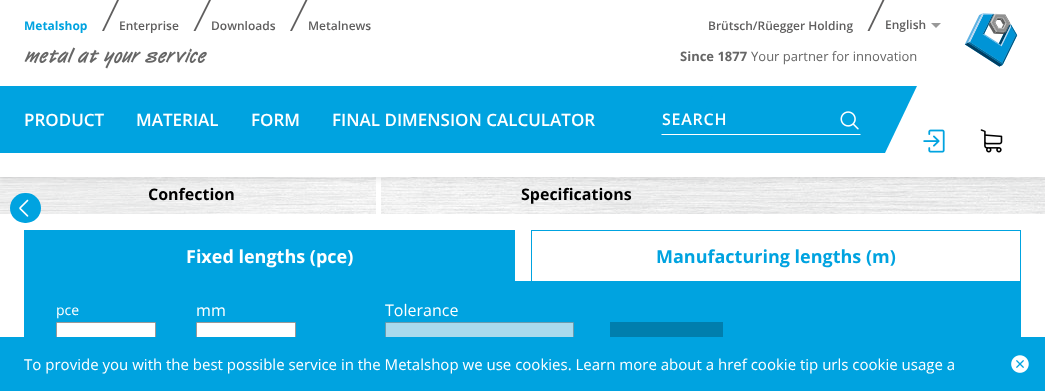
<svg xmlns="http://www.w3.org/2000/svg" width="1045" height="391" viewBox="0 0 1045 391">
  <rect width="100%" height="100%" fill="#fff"/>
  <image x="0" y="177" width="1045" height="37" href="img/6.png"/>
  <path d="M376 174h5v40H376z" fill="#fff"/>
  <path d="M0 2h1045v177H0z" fill="#0102021a" filter="blur(3px)"/>
  <path d="M0 0h1045v177H0z" fill="#fff"/>
  <path d="M117 0H119L104 31H102Z" fill="#5f5e5e"/>
  <path d="M209 0H211L195.5 31H193.5Z" fill="#5f5e5e"/>
  <path d="M305.5 0H307.5L292 31H290Z" fill="#5f5e5e"/>
  <path d="M882.5 0H884.5L869.5 31H867.5Z" fill="#5f5e5e"/>
  <path d="M931 23H941L936 28Z" fill="#999"/>
  <image x="964" y="13" width="54" height="54" href="img/1.png"/>
  <image x="24" y="47" width="183" height="22" href="img/2.png"/>
  <path d="M0 86h717v67H0z" fill="#00a3e0"/>
  <path d="M717 86H917L885 153H685Z" fill="#00a3e0"/>
  <path d="M861 135H661L662 134H860Z" fill="#fff"/>
  <image x="840" y="111" width="19" height="19" href="img/3.png"/>
  <image x="923" y="129" width="22" height="24" href="img/4.png"/>
  <image x="980" y="129" width="23" height="24" href="img/5.png"/>
  <rect x="11.5" y="194.5" width="28" height="27" rx="13.5" fill="#00a3e0" stroke="#00a3e0" stroke-width="3"/>
  <image x="19" y="199" width="10" height="18" href="img/7.png"/>
  <path d="M24 230h491v51H24z" fill="#00a3e0"/>
  <path d="M531 230h490v1H531z" fill="#00a3e0"/>
  <path d="M1020 230h1v51H1020z" fill="#00a3e0"/>
  <path d="M531 230h1v51H531z" fill="#00a3e0"/>
  <path d="M24 281h997v56H24z" fill="#00a3e0"/>
  <path d="M57 323h98v14H57z" fill="#fff"/>
  <path d="M56.5 322.5h99v38H56.5z" fill="none" stroke="#999"/>
  <path d="M197 323h98v14H197z" fill="#fff"/>
  <path d="M196.5 322.5h99v38H196.5z" fill="none" stroke="#999"/>
  <path d="M386 323h187v14H386z" fill="#a9daed"/>
  <path d="M385.5 322.5h188v38H385.5z" fill="none" stroke="#6b9cae"/>
  <path d="M610 322h113v15H610z" fill="#007ead"/>
  <path d="M0 337h1045v54H0z" fill="#00a3e0"/>
  <image x="1011" y="355" width="18" height="18" href="img/8.png"/>
  <text x="24" y="30" font-family="Open Sans" font-size="12" font-weight="bold" fill="#00a3e0">Metalshop</text>
  <g font-family="Open Sans" font-size="12" font-weight="600" fill="#5f5e5e">
    <text x="119" y="30">Enterprise</text>
    <text x="211" y="30">Downloads</text>
    <text x="308" y="30">Metalnews</text>
    <text x="708" y="30">Brütsch/Rüegger Holding</text>
    <text x="885" y="29">English</text>
  </g>
  <text x="680" y="61" font-family="Open Sans" font-size="13" font-weight="bold" fill="#666">Since 1877</text>
  <text x="751" y="61" font-family="Open Sans" font-size="13" fill="#666">Your partner for innovation</text>
  <g font-family="Open Sans" font-size="17" font-weight="600" fill="#fff">
    <text x="24" y="126">PRODUCT</text>
    <text x="136" y="126">MATERIAL</text>
    <text x="251" y="126">FORM</text>
    <text x="332" y="126">FINAL DIMENSION CALCULATOR</text>
  </g>
  <text x="662" y="125" font-family="Open Sans" font-size="16" font-weight="600" letter-spacing="0.75" fill="#fff">SEARCH</text>
  <g font-family="Open Sans" font-size="16" font-weight="bold" fill="#000">
    <text x="148" y="200">Confection</text>
    <text x="521" y="200">Specifications</text>
  </g>
  <text x="186" y="263" font-family="Open Sans" font-size="18" font-weight="bold" fill="#fff">Fixed lengths (pce)</text>
  <text x="656" y="263" font-family="Open Sans" font-size="18" font-weight="bold" fill="#00a3e0">Manufacturing lengths (m)</text>
  <text x="56" y="315" font-family="Open Sans" font-size="14" fill="#fff">pce</text>
  <g font-family="Open Sans" font-size="16" fill="#fff">
    <text x="196" y="316">mm</text>
    <text x="385" y="316">Tolerance</text>
  </g>
  <text x="24" y="370" font-family="Open Sans" font-size="15" fill="#fff">To provide you with the best possible service in the Metalshop we use cookies. Learn more about a href cookie tip urls cookie usage a</text>
</svg>
